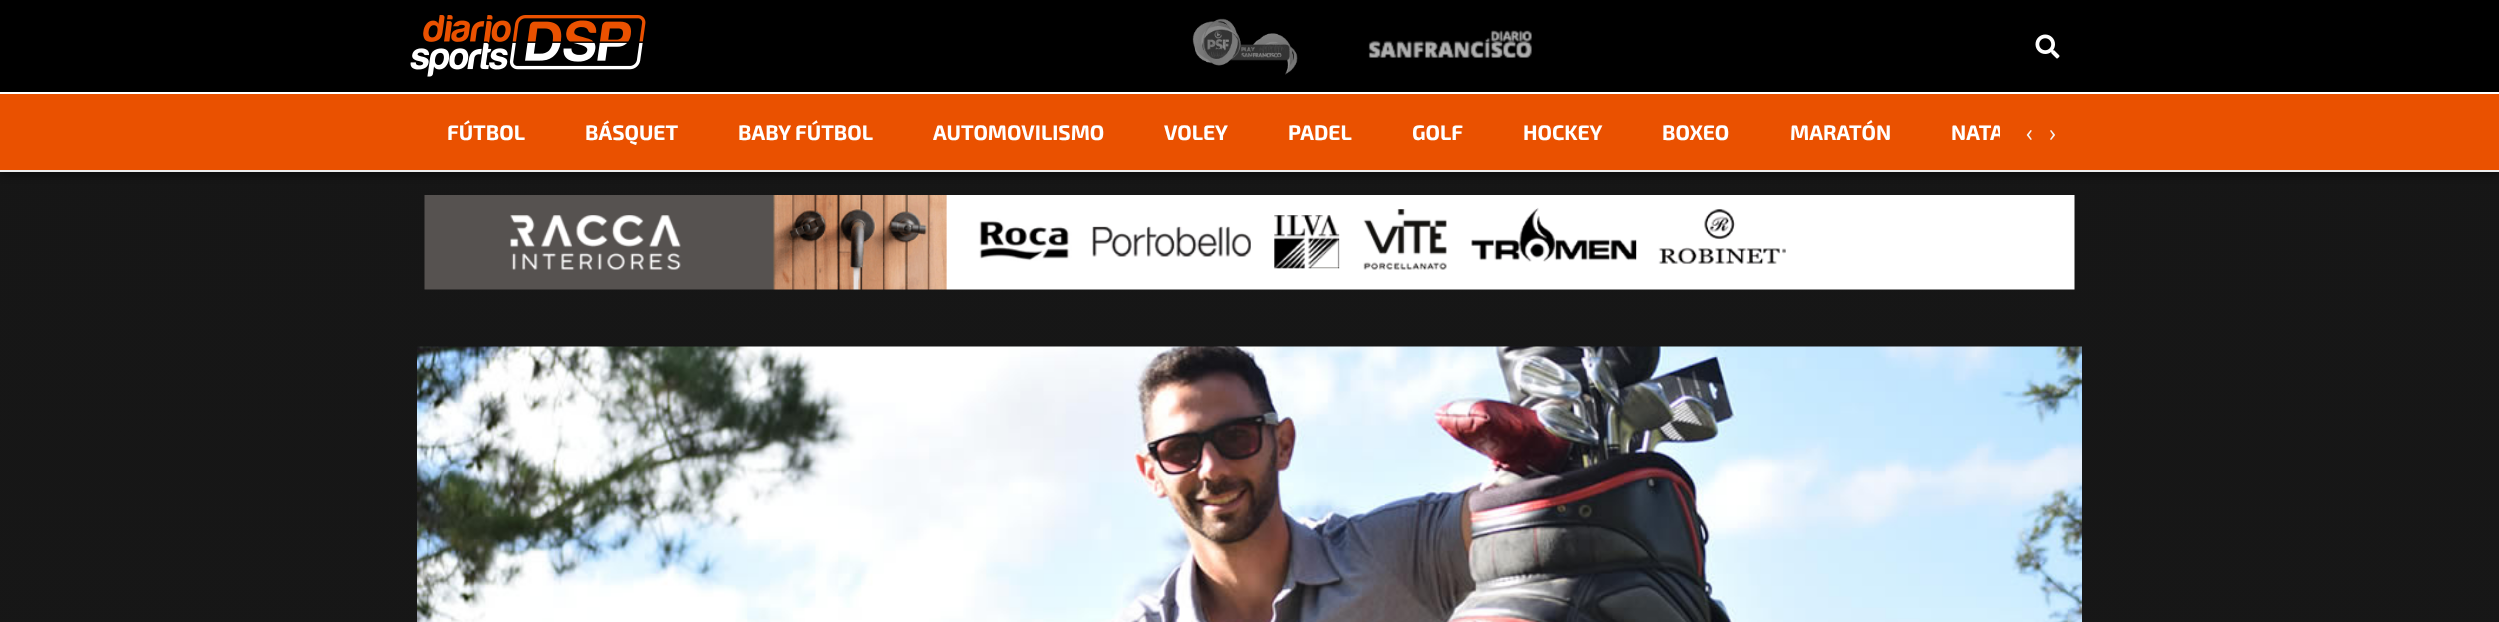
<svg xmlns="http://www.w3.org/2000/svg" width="2499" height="622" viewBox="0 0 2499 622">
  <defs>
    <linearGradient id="g1" gradientUnits="userSpaceOnUse" x1="1249" y1="0" x2="1250" y2="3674"><stop offset="0" stop-color="#161616"/><stop offset="0.25" stop-color="#171717"/><stop offset="0.5" stop-color="#191919"/><stop offset="0.75" stop-color="#1b1b1b"/><stop offset="1" stop-color="#161616"/></linearGradient>
    <clipPath id="clip1"><path d="M417 93h1583v77H417z"/></clipPath>
  </defs>
  <rect width="100%" height="100%" fill="#fff"/>
  <path d="M0 172h2499v450H0z" fill="url(#g1)"/>
  <path d="M0 0h2499v92H0z" fill="#000"/>
  <image x="410" y="15" width="236" height="62" href="img/1.png"/>
  <image x="1192" y="18" width="106" height="57" href="img/2.png"/>
  <image x="1368" y="30" width="164" height="28" href="img/3.png"/>
  <image x="2035" y="34" width="25" height="25" href="img/4.png"/>
  <path d="M0 95h2499v79H0z" fill="#00000080" filter="blur(4px)"/>
  <path d="M0 94h2499v76H0z" fill="#ea5100"/>
  <path d="M0 92h2499v2H0z" fill="#fff"/>
  <path d="M0 170h2499v2H0z" fill="#ededed"/>
  <image x="424" y="195" width="1651" height="95" href="img/5.png"/>
  <image x="417" y="346" width="1665" height="276" href="img/6.png"/>
  <g font-family="'Exo 2'" font-size="21" font-weight="bold" fill="#fff">
    <text x="447" y="140">FÚTBOL</text>
    <text x="585" y="140">BÁSQUET</text>
    <text x="738" y="140">BABY FÚTBOL</text>
    <text x="933" y="140">AUTOMOVILISMO</text>
    <text x="1164" y="140">VOLEY</text>
    <text x="1288" y="140">PADEL</text>
    <text x="1412" y="140">GOLF</text>
    <text x="1523" y="140">HOCKEY</text>
    <text x="1662" y="140">BOXEO</text>
    <text x="1790" y="140">MARATÓN</text>
  </g>
  <g clip-path="url(#clip1)">
    <text x="1951" y="140" font-family="'Exo 2'" font-size="21" font-weight="bold" fill="#fff">NATA</text>
  </g>
  <g font-family="'Exo 2'" font-size="24" fill="#f5f5f5">
    <text x="2026" y="141">‹</text>
    <text x="2049" y="141">›</text>
  </g>
</svg>
